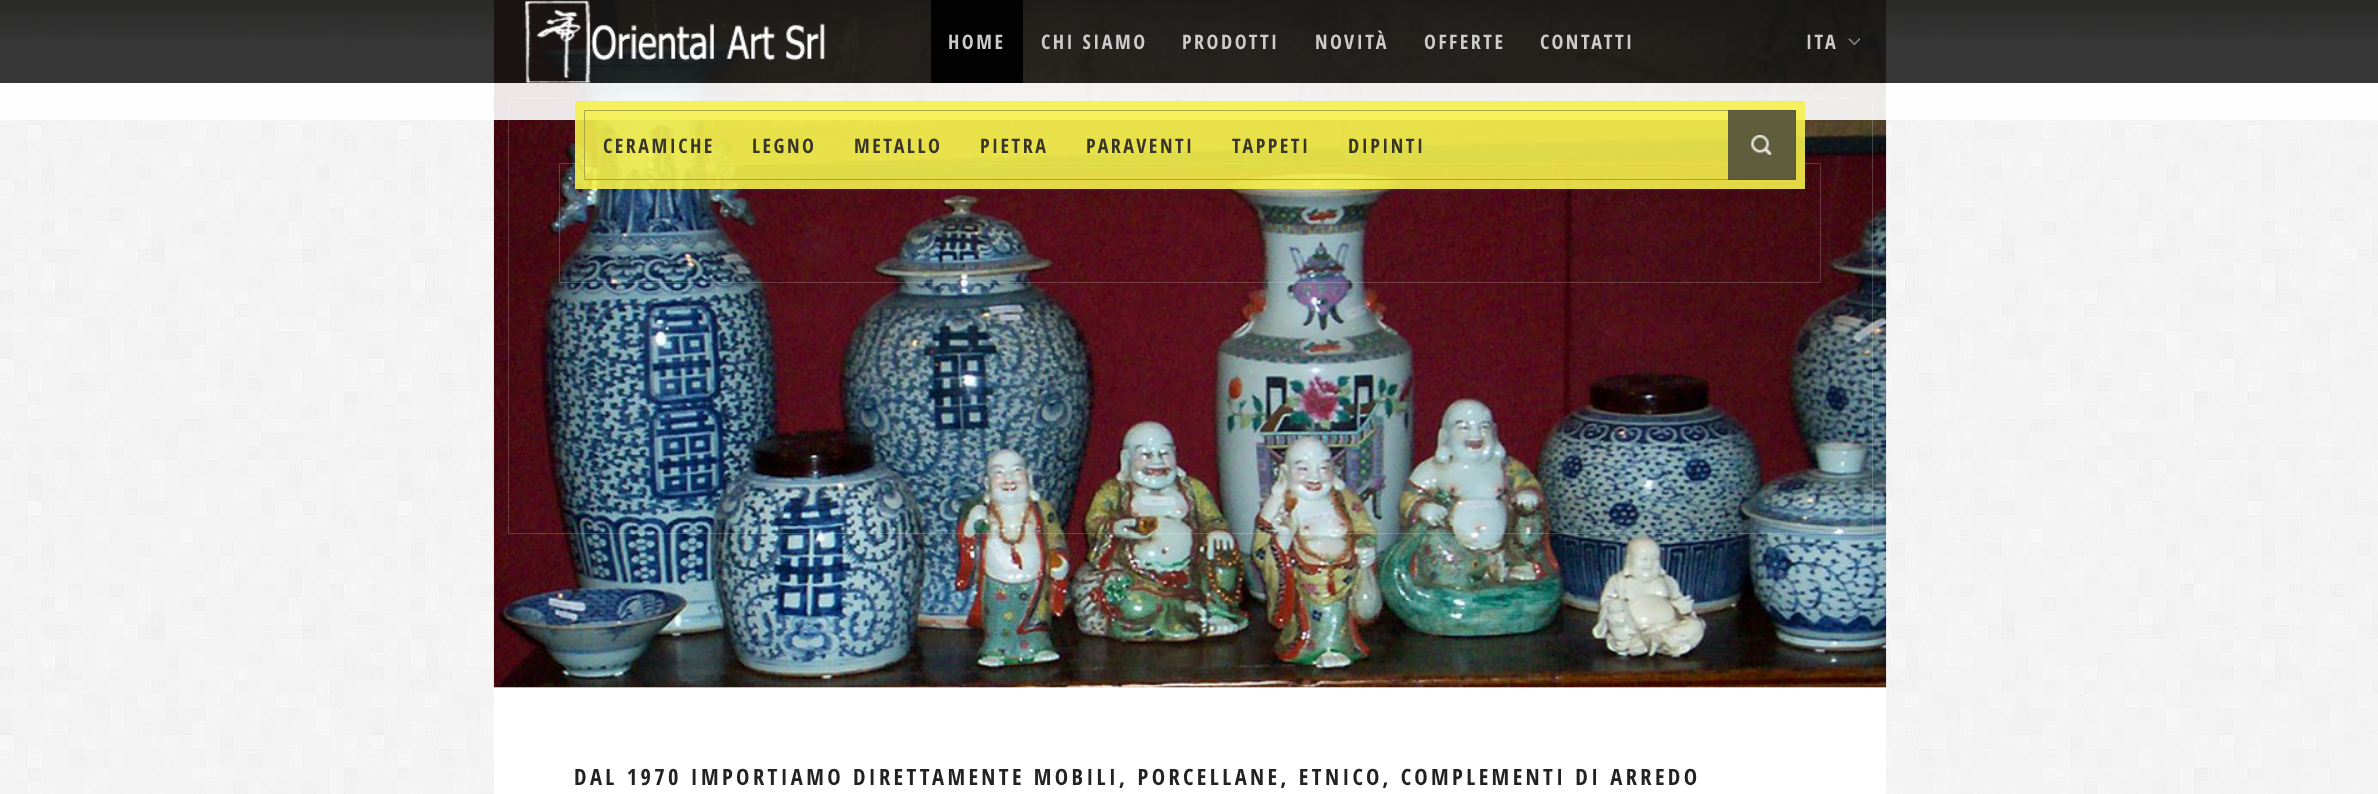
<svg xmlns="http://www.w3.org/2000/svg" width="2378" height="794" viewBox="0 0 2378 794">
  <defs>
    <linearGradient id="g1" gradientUnits="userSpaceOnUse" x1="1189" y1="0" x2="1189" y2="83"><stop offset="0" stop-color="#151514" stop-opacity="0.91"/><stop offset="0.52" stop-color="#151515" stop-opacity="0.85"/><stop offset="1" stop-color="#151515" stop-opacity="0.85"/></linearGradient>
  </defs>
  <rect width="100%" height="100%" fill="#fff"/>
  <image x="0" y="0" width="2378" height="794" href="img/1.png"/>
  <image x="493" y="0" width="1394" height="688" href="img/2.png"/>
  <path d="M508.5 98.5h1364v435H508.5z" fill="none" stroke="#ffffff33"/>
  <path d="M559.5 163.5h1261v119H559.5z" fill="none" stroke="#ffffff33"/>
  <path d="M0 0h2378v83H0z" fill="url(#g1)"/>
  <image x="525" y="0" width="301" height="83" href="img/3.png"/>
  <path d="M931 0h92v83H931z" fill="#020202"/>
  <image x="1848" y="38" width="12" height="7" href="img/4.png"/>
  <path d="M0 83h2378v37H0z" fill="#ffffffe6"/>
  <path d="M575 101h1230v88H575z" fill="#f5ef4be6"/>
  <path d="M584.5 110.5h1211v69H584.5z" fill="none" stroke="#a29f43e6"/>
  <path d="M1728 110h68v70H1728z" fill="#504f3be6"/>
  <image x="1751" y="135" width="21" height="20" href="img/5.png"/>
  <path d="M494 688h1392v106H494z" fill="#fff"/>
  <g font-family="Open Sans Condensed" font-size="20" font-weight="bold" letter-spacing="2.5" fill="#ccc">
    <text x="948" y="49">HOME</text>
    <text x="1041" y="49">CHI SIAMO</text>
    <text x="1182" y="49">PRODOTTI</text>
    <text x="1315" y="49">NOVITÀ</text>
    <text x="1424" y="49">OFFERTE</text>
    <text x="1540" y="49">CONTATTI</text>
    <text x="1806" y="49">ITA</text>
  </g>
  <g font-family="Open Sans Condensed" font-size="20" font-weight="bold" letter-spacing="2.5" fill="#363527">
    <text x="603" y="153">CERAMICHE</text>
    <text x="752" y="153">LEGNO</text>
    <text x="854" y="153">METALLO</text>
    <text x="980" y="153">PIETRA</text>
    <text x="1086" y="153">PARAVENTI</text>
    <text x="1232" y="153">TAPPETI</text>
    <text x="1348" y="153">DIPINTI</text>
  </g>
  <text x="574" y="785" font-family="Open Sans Condensed" font-size="22.5" font-weight="bold" letter-spacing="3.38" fill="#222">DAL 1970 IMPORTIAMO DIRETTAMENTE MOBILI, PORCELLANE, ETNICO, COMPLEMENTI DI ARREDO</text>
</svg>
